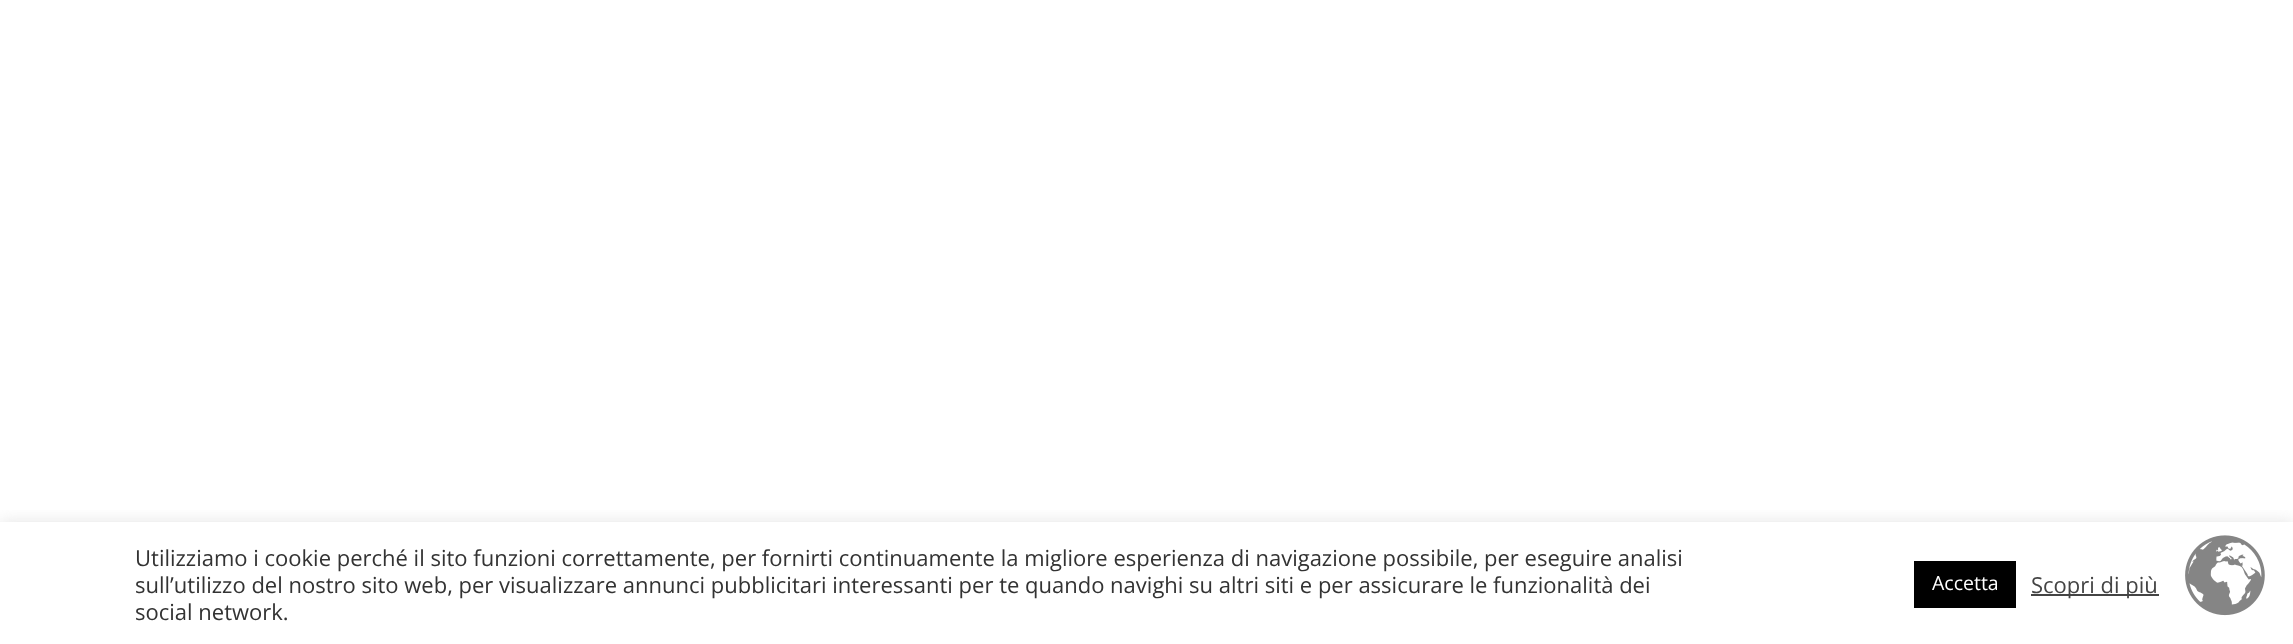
<svg xmlns="http://www.w3.org/2000/svg" width="2293" height="644" viewBox="0 0 2293 644">
  <defs>
    <clipPath id="clip1"><path d="M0 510h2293v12H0z"/></clipPath>
  </defs>
  <rect width="100%" height="100%" fill="#fff"/>
  <g clip-path="url(#clip1)">
    <path d="M0 521h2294v123H0z" fill="#acabab4d" filter="blur(7.5px)"/>
  </g>
  <path d="M1914 561h102v47H1914z" fill="#000"/>
  <path d="M2031 594h128v2H2031z" fill="#444"/>
  <image x="2185" y="535" width="80" height="81" href="img/1.png"/>
  <g font-family="Open Sans" font-size="22" fill="#333">
    <text x="135" y="566">Utilizziamo i cookie perché il sito funzioni correttamente, per fornirti continuamente la migliore esperienza di navigazione possibile, per eseguire analisi</text>
    <text x="135" y="593">sull’utilizzo del nostro sito web, per visualizzare annunci pubblicitari interessanti per te quando navighi su altri siti e per assicurare le funzionalità dei</text>
    <text x="135" y="620">social network.</text>
  </g>
  <text x="1932" y="590" font-family="Open Sans" font-size="19.5" fill="#fff">Accetta</text>
  <text x="2031" y="593" font-family="Open Sans" font-size="22" fill="#444">Scopri di più</text>
</svg>
